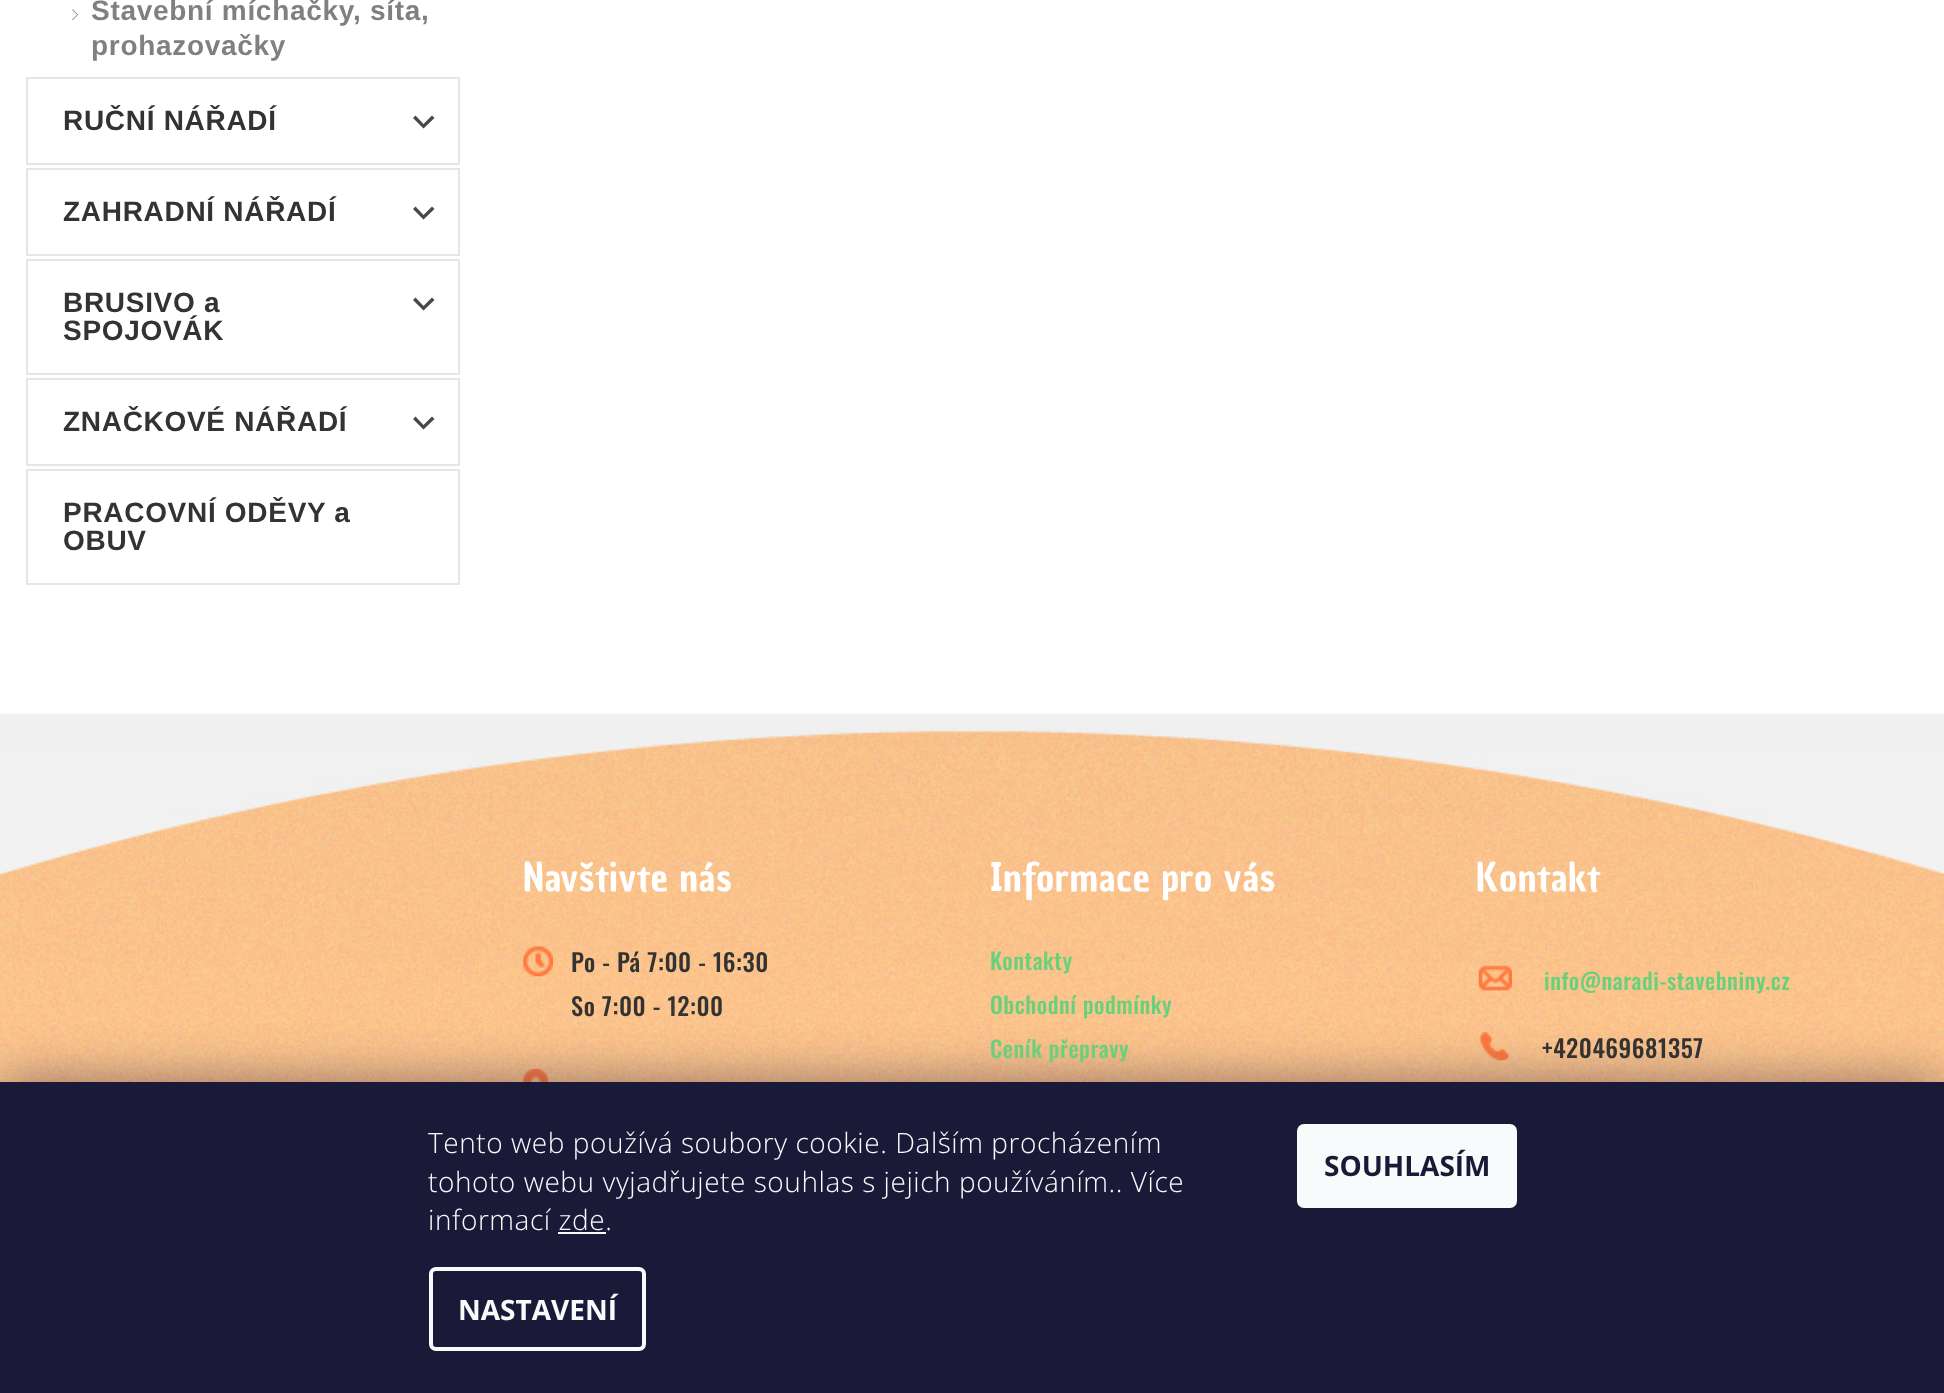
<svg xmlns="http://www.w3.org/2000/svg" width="1944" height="1393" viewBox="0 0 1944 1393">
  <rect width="100%" height="100%" fill="#fff"/>
  <image x="72" y="9" width="7" height="11" href="img/1.png"/>
  <path d="M27 78h432v86H27z" fill="none" stroke="#e6e6e6" stroke-width="2"/>
  <path d="M413 118L423.5 128.5L434.5 118L432 115.5L423.5 124L415.5 115.5Z" fill="#484848"/>
  <path d="M27 169h432v86H27z" fill="none" stroke="#e6e6e6" stroke-width="2"/>
  <path d="M413 209L423.5 219.5L434.5 209L432 206.5L423.5 215L415.5 206.5Z" fill="#484848"/>
  <path d="M27 260h432v114H27z" fill="none" stroke="#e6e6e6" stroke-width="2"/>
  <path d="M413 300L423.5 310.5L434.5 300L432 297.5L423.5 306L415.5 297.5Z" fill="#484848"/>
  <path d="M27 379h432v86H27z" fill="none" stroke="#e6e6e6" stroke-width="2"/>
  <path d="M413 419L423.5 429.5L434.5 419L432 416.5L423.5 425L415.5 416.5Z" fill="#484848"/>
  <path d="M27 470h432v114H27z" fill="none" stroke="#e6e6e6" stroke-width="2"/>
  <image x="0" y="713" width="1944" height="369" href="img/2.png"/>
  <image x="523" y="946" width="30" height="31" href="img/3.png"/>
  <image x="523" y="1069" width="25" height="13" href="img/4.png"/>
  <image x="1478" y="965" width="34" height="26" href="img/5.png"/>
  <image x="1480" y="1032" width="29" height="29" href="img/6.png"/>
  <path d="M0 1082h1944v311H0z" fill="#1b193980" filter="blur(26px)"/>
  <path d="M0 1082h1944v311H0z" fill="#1a1937"/>
  <path d="M558 1232h48v2H558z" fill="#f8fafb"/>
  <rect x="431" y="1269" width="213" height="80" rx="5" fill="none" stroke="#f8fafb" stroke-width="4"/>
  <rect x="1297" y="1124" width="220" height="84" rx="7" fill="#f8fafb"/>
  <g font-family="Liberation Sans" font-size="28" font-weight="bold" letter-spacing="0.7" fill="#808080">
    <text x="91" y="20">Stavební míchačky, síta,</text>
    <text x="91" y="55">prohazovačky</text>
  </g>
  <g font-family="Liberation Sans" font-size="28" font-weight="bold" letter-spacing="0.7" fill="#333">
    <text x="63" y="130">RUČNÍ NÁŘADÍ</text>
    <text x="63" y="221">ZAHRADNÍ NÁŘADÍ</text>
    <text x="63" y="312">BRUSIVO a</text>
    <text x="63" y="340">SPOJOVÁK</text>
    <text x="63" y="431">ZNAČKOVÉ NÁŘADÍ</text>
    <text x="63" y="522">PRACOVNÍ ODĚVY a</text>
    <text x="63" y="550">OBUV</text>
  </g>
  <text x="523" y="891" font-family="Chau Philomene One" font-size="38.5" letter-spacing="0.55" fill="#fff">Navštivte nás</text>
  <g font-family="Oswald" font-size="24.5" font-weight="500" letter-spacing="0.55" fill="#333">
    <text x="571" y="972">Po - Pá 7:00 - 16:30</text>
    <text x="571" y="1016">So 7:00 - 12:00</text>
  </g>
  <text x="990" y="891" font-family="Chau Philomene One" font-size="38.5" letter-spacing="0.55" fill="#fff">Informace pro vás</text>
  <g font-family="Oswald" font-size="22.75" font-weight="500" letter-spacing="0.55" fill="#6ad07c">
    <text x="990" y="970">Kontakty</text>
    <text x="990" y="1014">Obchodní podmínky</text>
    <text x="990" y="1058">Ceník přepravy</text>
  </g>
  <text x="1476" y="891" font-family="Chau Philomene One" font-size="38.5" letter-spacing="0.55" fill="#fff">Kontakt</text>
  <text x="1544" y="990" font-family="Oswald" font-size="22.75" font-weight="500" letter-spacing="0.55" fill="#6ad07c">info@naradi-stavebniny.cz</text>
  <text x="1542" y="1058" font-family="Oswald" font-size="24.5" font-weight="500" letter-spacing="0.55" fill="#333">+420469681357</text>
  <g font-family="Open Sans" font-size="28" font-weight="300" letter-spacing="0.55" fill="#f8fafb">
    <text x="428" y="1153">Tento web používá soubory cookie. Dalším procházením</text>
    <text x="428" y="1192">tohoto webu vyjadřujete souhlas s jejich používáním.. Více</text>
    <text x="428" y="1230">informací zde.</text>
  </g>
  <text x="458" y="1320" font-family="Open Sans" font-size="28" font-weight="bold" fill="#f8fafb">NASTAVENÍ</text>
  <text x="1324" y="1176" font-family="Open Sans" font-size="28" font-weight="bold" fill="#1a1937">SOUHLASÍM</text>
</svg>
